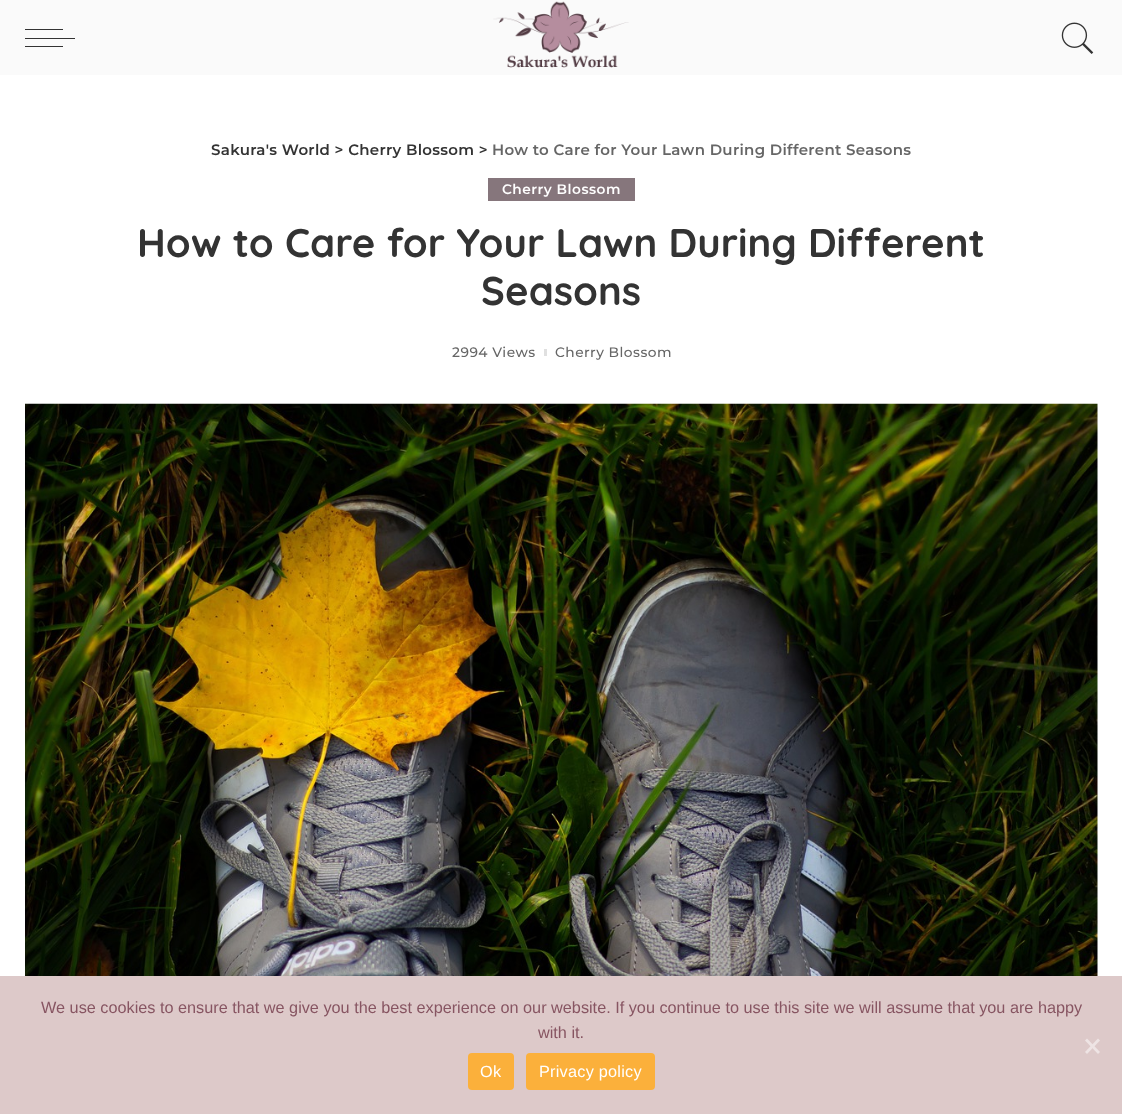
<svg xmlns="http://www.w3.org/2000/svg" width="1122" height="1114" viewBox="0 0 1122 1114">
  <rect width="100%" height="100%" fill="#fff"/>
  <path d="M0 0h1122v75H0z" fill="#fafafa"/>
  <path d="M25 38h50v1H25z" fill="#333"/>
  <path d="M25 29h38v1H25z" fill="#333"/>
  <path d="M25 46h38v1H25z" fill="#333"/>
  <image x="493" y="1" width="136" height="67" href="img/1.png"/>
  <image x="1061" y="22" width="33" height="32" href="img/2.png"/>
  <path d="M488 178h147v23H488z" fill="#86767c"/>
  <path d="M544 349h3v7H544z" fill="#e0e0e0"/>
  <image x="25" y="403" width="1073" height="573" href="img/3.png"/>
  <path d="M0 976h1122v138H0z" fill="#ddc9c9"/>
  <path d="M1098 1038.5L1100 1040.5L1087 1054L1085 1052Z" fill="#eee4e4"/>
  <path d="M1085 1040.5L1087 1038.5L1100 1052L1098 1054Z" fill="#eee4e4"/>
  <rect x="468" y="1053" width="46" height="37" rx="4" fill="#fbb03b"/>
  <rect x="526" y="1053" width="129" height="37" rx="4" fill="#fbb03b"/>
  <text x="211" y="155" font-family="Montserrat" font-size="15" font-weight="600" letter-spacing="0.3" fill="#333">Sakura's World &gt; Cherry Blossom &gt;</text>
  <text x="492" y="155" font-family="Montserrat" font-size="15" font-weight="600" letter-spacing="0.3" fill="#666">How to Care for Your Lawn During Different Seasons</text>
  <text x="502" y="194" font-family="Montserrat" font-size="13.75" font-weight="600" letter-spacing="0.5" fill="#fff">Cherry Blossom</text>
  <g font-family="Quicksand" font-size="40" font-weight="bold" fill="#333">
    <text x="137" y="257">How to Care for Your Lawn During Different</text>
    <text x="481" y="305">Seasons</text>
  </g>
  <g font-family="Montserrat" font-size="13.75" font-weight="500" letter-spacing="0.5" fill="#666">
    <text x="452" y="357">2994 Views</text>
    <text x="555" y="357">Cherry Blossom</text>
  </g>
  <g font-family="Liberation Sans" font-size="16.25" fill="#875562">
    <text x="41" y="1013">We use cookies to ensure that we give you the best experience on our website. If you continue to use this site we will assume that you are happy</text>
    <text x="538" y="1038">with it.</text>
  </g>
  <g font-family="Liberation Sans" font-size="16.25" letter-spacing="0.25" fill="#fff">
    <text x="480" y="1077">Ok</text>
    <text x="539" y="1077">Privacy policy</text>
  </g>
</svg>
